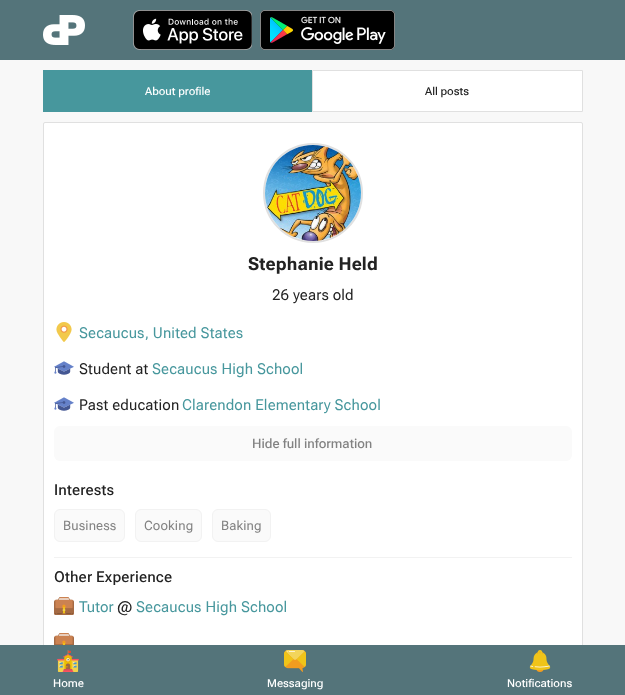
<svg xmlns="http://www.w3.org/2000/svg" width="625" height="695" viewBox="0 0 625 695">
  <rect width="100%" height="100%" fill="#f8f8f8"/>
  <path d="M43 70h269v42H43z" fill="#47979d"/>
  <path d="M312.5 70.5h270v41H312.5z" fill="#fff" stroke="#e0e0e0"/>
  <rect x="43.5" y="122.5" width="539" height="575" rx="1.5" fill="#fff" stroke="#e0e0e0"/>
  <circle cx="313" cy="193" r="49" fill="none" stroke="#e0e0e0" stroke-width="2"/>
  <image x="265" y="145" width="96" height="96" href="img/1.png"/>
  <image x="56" y="322" width="16" height="20" href="img/2.png"/>
  <image x="54" y="361" width="20" height="14" href="img/3.png"/>
  <image x="54" y="397" width="20" height="14" href="img/3.png"/>
  <rect x="54" y="426" width="518" height="35" rx="6" fill="#fafafa"/>
  <path d="M54 557h518v1H54z" fill="#f2f2f2"/>
  <rect x="54.5" y="509.5" width="70" height="32" rx="5.5" fill="#fafafa" stroke="#f2f2f2"/>
  <rect x="135.5" y="509.5" width="66" height="32" rx="5.5" fill="#fafafa" stroke="#f2f2f2"/>
  <rect x="212.5" y="509.5" width="58" height="32" rx="5.5" fill="#fafafa" stroke="#f2f2f2"/>
  <image x="54" y="597" width="20" height="18" href="img/4.png"/>
  <image x="54" y="633" width="20" height="12" href="img/5.png"/>
  <path d="M0 0h625v60H0z" fill="#54747a"/>
  <image x="43" y="15" width="42" height="30" href="img/6.png"/>
  <image x="133" y="10" width="119" height="40" href="img/7.png"/>
  <image x="260" y="10" width="135" height="40" href="img/8.png"/>
  <path d="M0 645h625v50H0z" fill="#54747a"/>
  <image x="57" y="650" width="22" height="22" href="img/9.png"/>
  <image x="284" y="650" width="22" height="22" href="img/10.png"/>
  <image x="529" y="650" width="22" height="22" href="img/11.png"/>
  <text x="145" y="95" font-family="Roboto Flex" font-size="11" font-weight="500" fill="#fff">About profile</text>
  <text x="425" y="95" font-family="Roboto Flex" font-size="11" font-weight="500" fill="#222">All posts</text>
  <text x="248" y="270" font-family="Roboto Flex" font-size="18" font-weight="bold" letter-spacing="0.15" fill="#222">Stephanie Held</text>
  <text x="272" y="300" font-family="Roboto Flex" font-size="15" letter-spacing="0.15" fill="#222">26 years old</text>
  <text x="79" y="338" font-family="Roboto Flex" font-size="15" letter-spacing="0.15" fill="#47979d">Secaucus, United States</text>
  <text x="79" y="374" font-family="Roboto Flex" font-size="15" letter-spacing="0.15" fill="#222">Student at</text>
  <text x="152" y="374" font-family="Roboto Flex" font-size="15" letter-spacing="0.15" fill="#47979d">Secaucus High School</text>
  <text x="79" y="410" font-family="Roboto Flex" font-size="15" letter-spacing="0.15" fill="#222">Past education</text>
  <text x="182" y="410" font-family="Roboto Flex" font-size="15" letter-spacing="0.15" fill="#47979d">Clarendon Elementary School</text>
  <text x="252" y="448" font-family="'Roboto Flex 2'" font-size="13" font-weight="500" fill="#828282">Hide full information</text>
  <text x="54" y="495" font-family="'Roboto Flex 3'" font-size="15" font-weight="500" letter-spacing="0.15" fill="#222">Interests</text>
  <g font-family="'Roboto Flex 2'" font-size="13" letter-spacing="0.15" fill="#828282">
    <text x="63" y="530">Business</text>
    <text x="144" y="530">Cooking</text>
    <text x="221" y="530">Baking</text>
  </g>
  <text x="54" y="582" font-family="'Roboto Flex 3'" font-size="15" font-weight="500" letter-spacing="0.15" fill="#222">Other Experience</text>
  <text x="79" y="612" font-family="Roboto Flex" font-size="15" letter-spacing="0.15" fill="#47979d">Tutor</text>
  <text x="117" y="612" font-family="Roboto Flex" font-size="15" letter-spacing="0.15" fill="#222">@</text>
  <text x="136" y="612" font-family="Roboto Flex" font-size="15" letter-spacing="0.15" fill="#47979d">Secaucus High School</text>
  <g font-family="Roboto Flex" font-size="11" font-weight="500" fill="#fff">
    <text x="53" y="687">Home</text>
    <text x="267" y="687">Messaging</text>
    <text x="507" y="687">Notifications</text>
  </g>
</svg>
